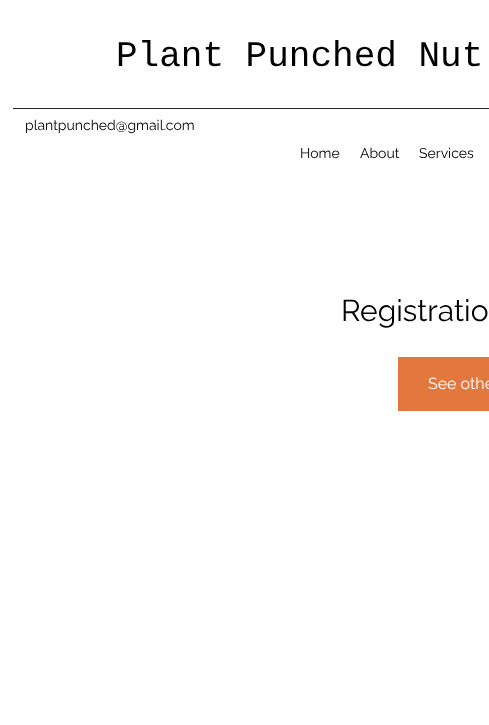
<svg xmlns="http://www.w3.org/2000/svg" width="489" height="725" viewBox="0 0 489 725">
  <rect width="100%" height="100%" fill="#fff"/>
  <path d="M13 108h476v1H13z" fill="#262626"/>
  <path d="M398 357h91v54H398z" fill="#e3783e"/>
  <text x="116" y="66" font-family="Liberation Mono" font-size="36" fill="#000">Plant Punched Nut</text>
  <g font-family="Raleway" font-size="14" fill="#000">
    <text x="25" y="130">plantpunched@gmail.com</text>
    <text x="300" y="158">Home</text>
    <text x="360" y="158">About</text>
    <text x="419" y="158">Services</text>
  </g>
  <text x="341" y="321" font-family="Raleway" font-size="30" fill="#000">Registratio</text>
  <text x="428" y="389" font-family="Raleway" font-size="16" fill="#fff">See othe</text>
</svg>
